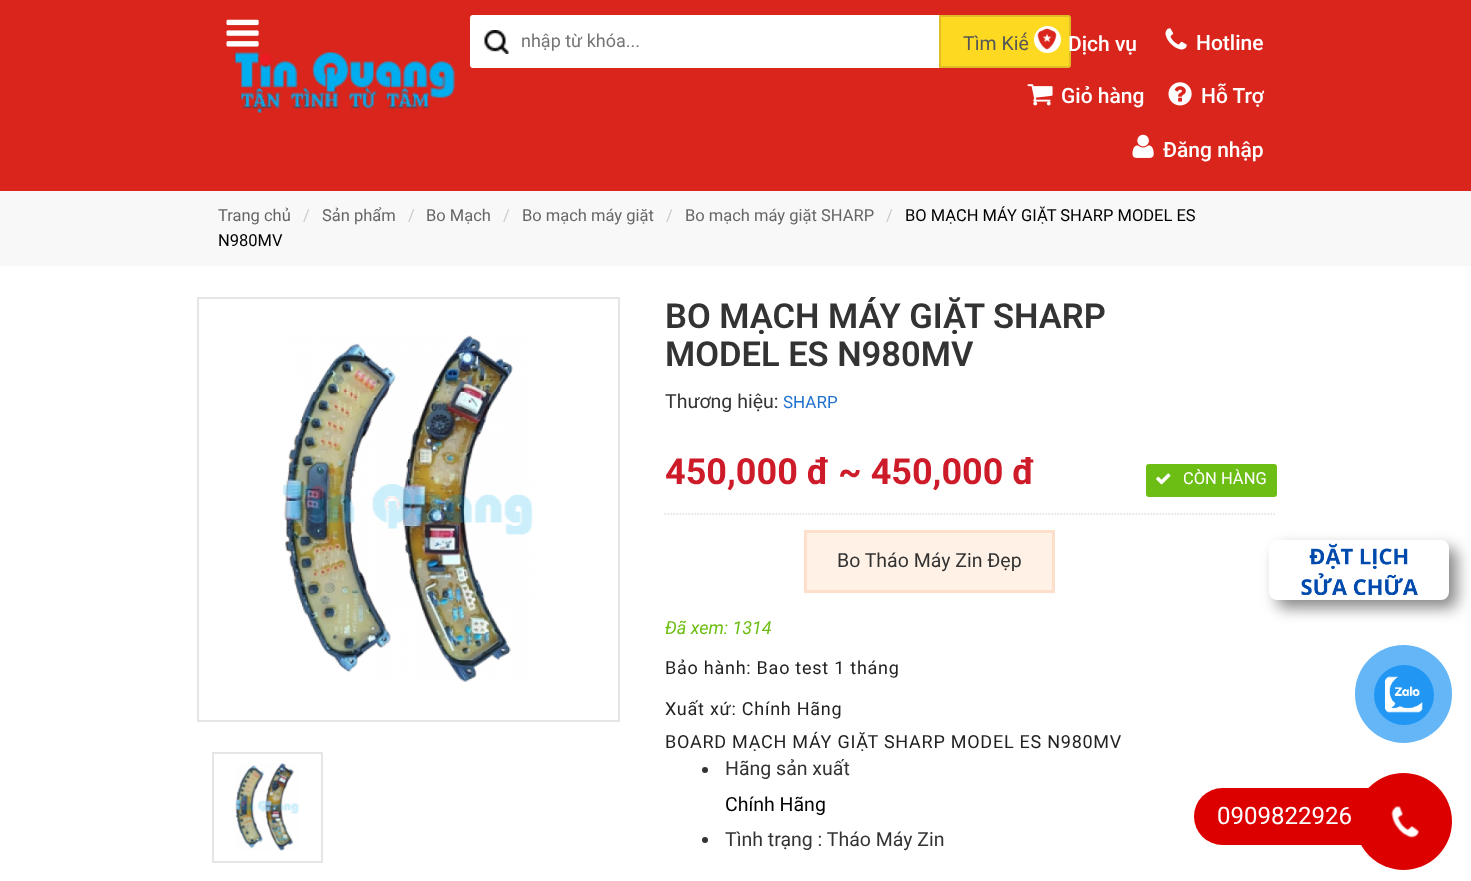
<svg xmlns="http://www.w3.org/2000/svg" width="1471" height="881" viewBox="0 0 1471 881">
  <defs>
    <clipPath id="clip1"><path d="M174 297h1125v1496H174z"/></clipPath>
  </defs>
  <rect width="100%" height="100%" fill="#fff"/>
  <path d="M0 0h1471v191H0z" fill="#da251c"/>
  <image x="226" y="19" width="33" height="28" href="img/1.png"/>
  <image x="234" y="52" width="221" height="61" href="img/2.png"/>
  <rect x="470" y="15" width="600" height="53" rx="3" fill="#fff"/>
  <image x="484" y="30" width="25" height="24" href="img/3.png"/>
  <path d="M940 16H1068C1069 16 1070 17 1070 18V65C1070 66 1069 67 1068 67H940Z" fill="#fdd922" stroke="#e0bc27" stroke-width="2"/>
  <circle cx="1047.5" cy="39.5" r="13.5" fill="#fff"/>
  <image x="1037" y="28" width="20" height="22" href="img/4.png"/>
  <image x="1165" y="28" width="22" height="22" href="img/5.png"/>
  <image x="1027" y="84" width="26" height="22" href="img/6.png"/>
  <image x="1168" y="82" width="24" height="24" href="img/7.png"/>
  <image x="1132" y="134" width="22" height="24" href="img/8.png"/>
  <path d="M0 191h1471v75H0z" fill="#f8f8f8"/>
  <path d="M198 298h421v423H198z" fill="none" stroke="#e5e5e5" stroke-width="2"/>
  <image x="283" y="335" width="250" height="347" href="img/9.png"/>
  <path d="M213 753h109v109H213z" fill="none" stroke="#e5e5e5" stroke-width="2"/>
  <image x="235" y="763" width="64" height="88" href="img/10.png"/>
  <path d="M664.5 514H1276.5" fill="none" stroke="#ddd" stroke-width="1.5" stroke-dasharray="1.5 1.5"/>
  <rect x="1146" y="464" width="131" height="33" rx="3" fill="#6dbe14"/>
  <image x="1156" y="473" width="15" height="12" href="img/11.png"/>
  <path d="M805.5 531.5h248v60H805.5z" fill="#fff1e5" stroke="#fedfcb" stroke-width="3"/>
  <circle cx="705" cy="770" r="3" fill="#333"/>
  <circle cx="705" cy="840" r="3" fill="#333"/>
  <rect x="1277" y="548" width="180" height="60" rx="8" fill="#888" filter="blur(7.5px)"/>
  <rect x="1269" y="540" width="180" height="60" rx="8" fill="#fff"/>
  <image x="1301" y="543" width="117" height="52" href="img/12.png"/>
  <rect x="1355" y="645" width="97" height="98" rx="48.5" fill="#64b6f7"/>
  <circle cx="1404" cy="695" r="30" fill="#2196f3"/>
  <image x="1385" y="676" width="38" height="37" href="img/13.png"/>
  <rect x="1194" y="788" width="233" height="57" rx="28.5" fill="#d00"/>
  <circle cx="1403.5" cy="821.5" r="48.5" fill="#d00"/>
  <image x="1391" y="806" width="28" height="32" href="img/14.png"/>
  <text x="521" y="47" font-family="Roboto" font-size="18" fill="#757575">nhập từ khóa...</text>
  <text x="963" y="50" font-family="Roboto" font-size="19.5" fill="#565656">Tìm Kiế</text>
  <g font-family="Roboto" font-size="21" font-weight="500" fill="#fff">
    <text x="1068" y="51">Dịch vụ</text>
    <text x="1196" y="50">Hotline</text>
    <text x="1061" y="103">Giỏ hàng</text>
    <text x="1201" y="103">Hỗ Trợ</text>
    <text x="1163" y="157">Đăng nhập</text>
  </g>
  <text x="218" y="221" font-family="Roboto" font-size="16.5" fill="#666">Trang chủ</text>
  <text x="303" y="221" font-family="Roboto" font-size="16.5" fill="#ccc">/</text>
  <text x="322" y="221" font-family="Roboto" font-size="16.5" fill="#666">Sản phẩm</text>
  <text x="408" y="221" font-family="Roboto" font-size="16.5" fill="#ccc">/</text>
  <text x="426" y="221" font-family="Roboto" font-size="16.5" fill="#666">Bo Mạch</text>
  <text x="503" y="221" font-family="Roboto" font-size="16.5" fill="#ccc">/</text>
  <text x="522" y="221" font-family="Roboto" font-size="16.5" fill="#666">Bo mạch máy giặt</text>
  <text x="666" y="221" font-family="Roboto" font-size="16.5" fill="#ccc">/</text>
  <text x="685" y="221" font-family="Roboto" font-size="16.5" fill="#666">Bo mạch máy giặt SHARP</text>
  <text x="886" y="221" font-family="Roboto" font-size="16.5" fill="#ccc">/</text>
  <g font-family="Roboto" font-size="16.5" fill="#000">
    <text x="905" y="221">BO MẠCH MÁY GIẶT SHARP MODEL ES</text>
    <text x="218" y="246">N980MV</text>
  </g>
  <g clip-path="url(#clip1)">
    <text x="665" y="328" font-family="Roboto" font-size="34.5" font-weight="600" fill="#333">BO MẠCH MÁY GIẶT SHARP</text>
  </g>
  <text x="665" y="366" font-family="Roboto" font-size="34.5" font-weight="600" fill="#333">MODEL ES N980MV</text>
  <text x="665" y="408" font-family="Roboto" font-size="19.5" fill="#333">Thương hiệu:</text>
  <text x="783" y="408" font-family="Roboto" font-size="17" fill="#1f72ce">SHARP</text>
  <text x="665" y="484" font-family="Roboto" font-size="36" font-weight="bold" fill="#cd1b29">450,000 đ ~ 450,000 đ</text>
  <text x="1183" y="484" font-family="Roboto" font-size="16.5" fill="#fff">CÒN HÀNG</text>
  <text x="837" y="567" font-family="Roboto" font-size="19.5" fill="#333">Bo Tháo Máy Zin Đẹp</text>
  <text x="665" y="634" font-family="Roboto" font-size="18" font-style="italic" fill="#6dbe14">Đã xem: 1314</text>
  <g font-family="Roboto" font-size="18" letter-spacing="0.75" fill="#222">
    <text x="665" y="674">Bảo hành: Bao test 1 tháng</text>
    <text x="665" y="715">Xuất xứ: Chính Hãng</text>
    <text x="665" y="748">BOARD MẠCH MÁY GIẶT SHARP MODEL ES N980MV</text>
  </g>
  <text x="725" y="775" font-family="Roboto" font-size="19.5" fill="#333">Hãng sản xuất</text>
  <text x="725" y="811" font-family="Roboto" font-size="19.5" fill="#000">Chính Hãng</text>
  <text x="725" y="846" font-family="Roboto" font-size="19.5" fill="#333">Tình trạng : Tháo Máy Zin</text>
  <text x="1217" y="824" font-family="Roboto" font-size="24" fill="#fff">0909822926</text>
</svg>
